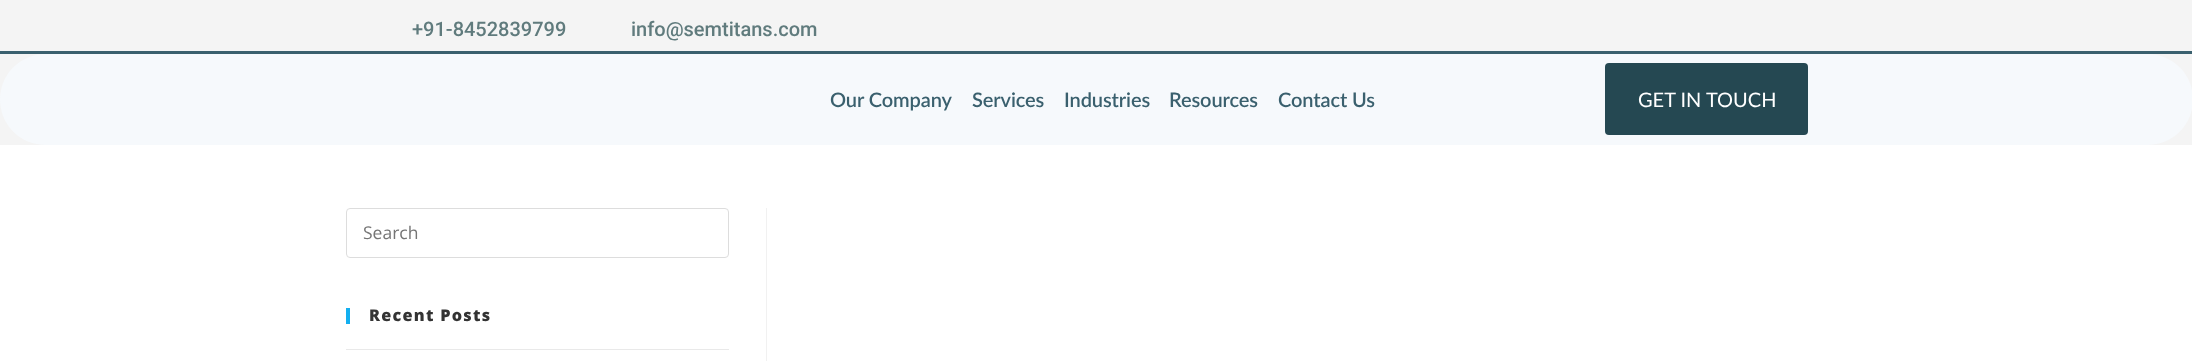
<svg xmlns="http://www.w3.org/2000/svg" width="2192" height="361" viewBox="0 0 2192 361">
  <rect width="100%" height="100%" fill="#fff"/>
  <path d="M0 0h2192v51H0z" fill="#f4f4f4"/>
  <path d="M0 51h2192v3H0z" fill="#3a606e"/>
  <path d="M0 54h2192v91H0z" fill="#f4f4f4"/>
  <rect y="54" width="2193" height="91" rx="45.5" fill="#f6f9fc"/>
  <rect x="1605" y="63" width="203" height="72" rx="4" fill="#254852"/>
  <rect x="346.5" y="208.5" width="382" height="49" rx="3.5" fill="none" stroke="#ddd"/>
  <path d="M346 308h4v16H346z" fill="#13aff0"/>
  <path d="M346 349h383v1H346z" fill="#e9e9e9"/>
  <path d="M766 208h1v153H766z" fill="#f1f1f1"/>
  <g font-family="Roboto" font-size="20" font-weight="500" fill="#607b7d">
    <text x="412" y="36">+91-8452839799</text>
    <text x="631" y="36">info@semtitans.com</text>
  </g>
  <g font-family="Lato" font-size="20" font-weight="600" letter-spacing="-0.1" fill="#3a606e">
    <text x="830" y="107">Our Company</text>
    <text x="972" y="107">Services</text>
    <text x="1064" y="107">Industries</text>
    <text x="1169" y="107">Resources</text>
    <text x="1278" y="107">Contact Us</text>
  </g>
  <text x="1638" y="107" font-family="Lato" font-size="20" fill="#fff">GET IN TOUCH</text>
  <text x="363" y="239" font-family="Open Sans" font-size="17.5" fill="#757575">Search</text>
  <text x="369" y="321" font-family="Open Sans" font-size="16.25" font-weight="800" letter-spacing="1.25" fill="#333">Recent Posts</text>
</svg>
